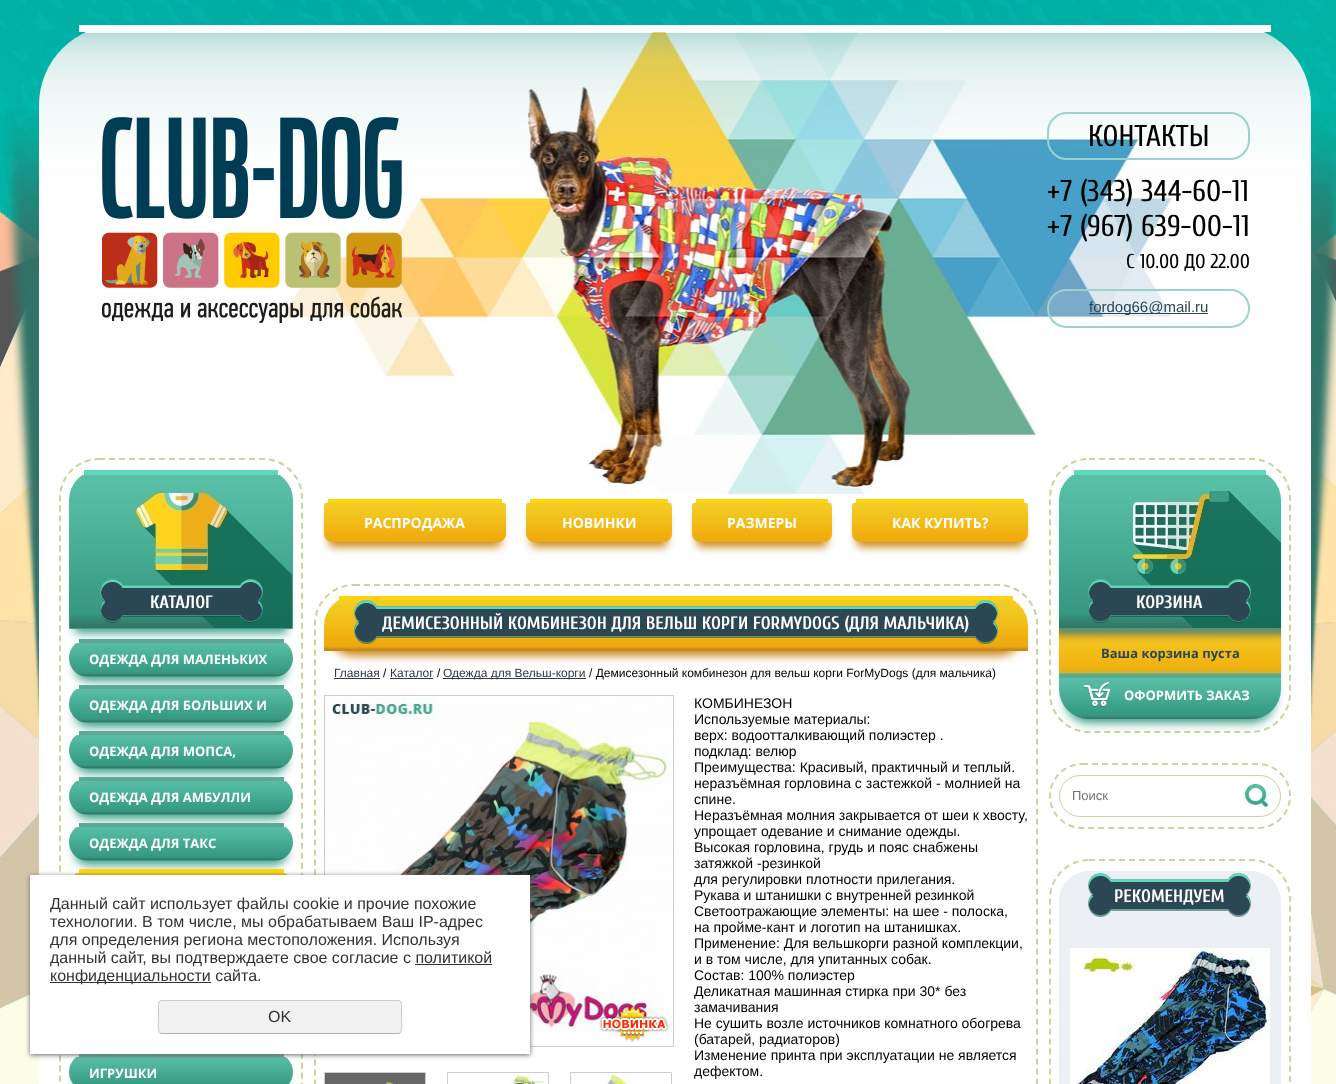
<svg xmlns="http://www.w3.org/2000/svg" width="1336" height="1084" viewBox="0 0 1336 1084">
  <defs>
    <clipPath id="clip1"><path d="M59 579H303V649H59ZM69 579H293V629H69Z" clip-rule="evenodd"/></clipPath>
    <clipPath id="clip2"><path d="M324 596h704v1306H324z"/></clipPath>
  </defs>
  <rect width="100%" height="100%" fill="#fff"/>
  <image x="0" y="0" width="1336" height="1084" href="img/1.png"/>
  <image x="39" y="32" width="1272" height="463" href="img/2.png"/>
  <path d="M79 25h1192v7H79z" fill="#fff"/>
  <image x="4" y="110" width="35" height="609" href="img/3.png"/>
  <image x="102" y="117" width="300" height="206" href="img/4.png"/>
  <rect x="1048" y="113" width="201" height="46" rx="19" fill="none" stroke="#9ad3cd" stroke-width="2"/>
  <rect x="1048" y="290" width="201" height="37" rx="18.5" fill="#ffffff1a" stroke="#9ad3cd" stroke-width="2"/>
  <path d="M1089 313h119v1H1089z" fill="#2b4753"/>
  <image x="1311" y="112" width="25" height="607" href="img/5.png"/>
  <path d="M39 495h1272v589H39z" fill="#fff"/>
  <path d="M99 459H263C284.5 459 302 476.5 302 498V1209C302 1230.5 284.5 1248 263 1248H99C77.5 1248 60 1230.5 60 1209V498C60 476.5 77.5 459 99 459Z" fill="none" stroke="#c8d59e" stroke-width="2" stroke-dasharray="6 4"/>
  <image x="69" y="475" width="224" height="154" href="img/6.png"/>
  <path d="M84 470h194v5H84z" fill="#5fd7ba"/>
  <rect x="75" y="655" width="212" height="26" rx="13" fill="#3ca088" filter="blur(5px)"/>
  <image x="69" y="643" width="224" height="34" href="img/8.png"/>
  <path d="M79 639h205v4H79z" fill="#5ca997"/>
  <g clip-path="url(#clip1)">
    <path d="M75 595h212v38H75z" fill="#3ca088" filter="blur(5px)"/>
  </g>
  <image x="100" y="579" width="163" height="44" href="img/7.png"/>
  <rect x="75" y="701" width="212" height="26" rx="13" fill="#3ca088" filter="blur(5px)"/>
  <image x="69" y="689" width="224" height="34" href="img/9.png"/>
  <path d="M79 685h205v4H79z" fill="#5ca997"/>
  <rect x="75" y="747" width="212" height="26" rx="13" fill="#3ca088" filter="blur(5px)"/>
  <image x="69" y="735" width="224" height="34" href="img/9.png"/>
  <path d="M79 731h205v4H79z" fill="#5ca997"/>
  <rect x="75" y="793" width="212" height="26" rx="13" fill="#3ca088" filter="blur(5px)"/>
  <image x="69" y="781" width="224" height="34" href="img/9.png"/>
  <path d="M79 777h205v4H79z" fill="#5ca997"/>
  <rect x="75" y="839" width="212" height="26" rx="13" fill="#3ca088" filter="blur(5px)"/>
  <image x="69" y="827" width="224" height="34" href="img/9.png"/>
  <path d="M79 823h205v4H79z" fill="#5ca997"/>
  <image x="74" y="873" width="214" height="2" href="img/10.png"/>
  <path d="M79 869h205v4H79z" fill="#ffd50f"/>
  <rect x="75" y="1023" width="212" height="26" rx="13" fill="#3ca088" filter="blur(5px)"/>
  <rect x="75" y="1069" width="212" height="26" rx="13" fill="#3ca088" filter="blur(5px)"/>
  <image x="69" y="1057" width="224" height="27" href="img/11.png"/>
  <path d="M79 1054h205v3H79z" fill="#5ca997"/>
  <rect x="329" y="514" width="172" height="33" rx="3" fill="#ca8a1c" filter="blur(4.5px)"/>
  <image x="324" y="503" width="182" height="39" href="img/12.png"/>
  <path d="M328 499h174v4H328z" fill="#ffd50f"/>
  <rect x="531" y="514" width="136" height="33" rx="3" fill="#ca8a1c" filter="blur(4.5px)"/>
  <image x="526" y="503" width="146" height="39" href="img/13.png"/>
  <path d="M530 499h138v4H530z" fill="#ffd50f"/>
  <rect x="697" y="514" width="130" height="33" rx="3" fill="#ca8a1c" filter="blur(4.5px)"/>
  <image x="692" y="503" width="140" height="39" href="img/14.png"/>
  <path d="M696 499h132v4H696z" fill="#ffd50f"/>
  <rect x="857" y="514" width="166" height="33" rx="3" fill="#ca8a1c" filter="blur(4.5px)"/>
  <image x="852" y="503" width="176" height="39" href="img/15.png"/>
  <path d="M856 499h168v4H856z" fill="#ffd50f"/>
  <path d="M354 585H998C1019.5 585 1037 602.5 1037 624V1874C1037 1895.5 1019.5 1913 998 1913H354C332.5 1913 315 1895.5 315 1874V624C315 602.5 332.5 585 354 585Z" fill="none" stroke="#c8d59e" stroke-width="2" stroke-dasharray="6 4"/>
  <g clip-path="url(#clip2)">
    <rect x="329" y="611" width="694" height="45" rx="25" fill="#ca8a1c" filter="blur(4.5px)"/>
  </g>
  <image x="324" y="600" width="704" height="51" href="img/16.png"/>
  <path d="M339 596h674v4H339z" fill="#ffd50f"/>
  <image x="354" y="600" width="23" height="44" href="img/17.png"/>
  <image x="377" y="606" width="598" height="32" href="img/18.png"/>
  <image x="975" y="600" width="23" height="44" href="img/19.png"/>
  <path d="M334 678h46v1H334z" fill="#2e3846"/>
  <path d="M390 678h43v1H390z" fill="#2e3846"/>
  <path d="M443 678h143v1H443z" fill="#2e3846"/>
  <path d="M324.5 695.5h349v351H324.5z" fill="none" stroke="#ccc"/>
  <image x="325" y="697" width="348" height="335" href="img/20.png"/>
  <image x="599" y="1007" width="70" height="35" href="img/21.png"/>
  <path d="M324.5 1072.5h101v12H324.5z" fill="none" stroke="#ccc"/>
  <image x="325" y="1073" width="100" height="11" href="img/22.png"/>
  <path d="M447.5 1072.5h101v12H447.5z" fill="none" stroke="#ccc"/>
  <image x="510" y="1074" width="35" height="10" href="img/23.png"/>
  <path d="M570.5 1072.5h101v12H570.5z" fill="none" stroke="#ccc"/>
  <image x="605" y="1074" width="23" height="10" href="img/24.png"/>
  <path d="M1089 459H1251C1272.5 459 1290 476.5 1290 498V693C1290 714.5 1272.5 732 1251 732H1089C1067.5 732 1050 714.5 1050 693V498C1050 476.5 1067.5 459 1089 459Z" fill="none" stroke="#c8d59e" stroke-width="2" stroke-dasharray="6 4"/>
  <rect x="1065" y="486" width="210" height="237" rx="24" fill="#3ca088" filter="blur(5px)"/>
  <image x="1059" y="475" width="222" height="244" href="img/25.png"/>
  <path d="M1074 470h192v5H1074z" fill="#5fd7ba"/>
  <image x="1088" y="579" width="163" height="44" href="img/26.png"/>
  <image x="1084" y="682" width="26" height="25" href="img/27.png"/>
  <path d="M1082 764H1258C1275.5 764 1290 778.5 1290 796C1290 813.5 1275.5 828 1258 828H1082C1064.5 828 1050 813.5 1050 796C1050 778.5 1064.5 764 1082 764Z" fill="none" stroke="#c8d59e" stroke-width="2" stroke-dasharray="6 4"/>
  <rect x="1059.5" y="775.5" width="221" height="41" rx="20.5" fill="none" stroke="#c8d59e"/>
  <image x="1245" y="784" width="23" height="23" href="img/28.png"/>
  <path d="M1089 860H1251C1272.5 860 1290 877.5 1290 899V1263C1290 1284.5 1272.5 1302 1251 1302H1089C1067.5 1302 1050 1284.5 1050 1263V899C1050 877.5 1067.5 860 1089 860Z" fill="none" stroke="#c8d59e" stroke-width="2" stroke-dasharray="6 4"/>
  <rect x="1059" y="871" width="222" height="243" rx="30" fill="#ecf0f4"/>
  <image x="1088" y="873" width="163" height="44" href="img/29.png"/>
  <path d="M1070 948h4v136H1070z" fill="#fff"/>
  <image x="1074" y="948" width="196" height="136" href="img/30.png"/>
  <path d="M30 876h500v179H30z" fill="#666" filter="blur(2.5px)"/>
  <path d="M30 875h500v179H30z" fill="#fff"/>
  <path d="M415 964h77v1H415z" fill="#333"/>
  <path d="M50 982h161v1H50z" fill="#333"/>
  <rect x="158" y="1000" width="244" height="34" rx="4" fill="#f1f1f1"/>
  <path d="M400.5 1032.5C400 1033 399 1033.5 398 1033.5H162C161 1033.5 160 1033 159.5 1032.5" fill="none" stroke="#b3b3b3"/>
  <path d="M159.5 1032.5C157.5 1030 158.5 1020 158.5 1017V1008.5C158.5 1005.5 158 1000.5 162 1000.5H398C402 1000.5 401.5 1005.5 401.5 1008.5V1017C401.5 1020 402.5 1030 400.5 1032.5" fill="none" stroke="#ccc"/>
  <g font-family="Cuprum" font-size="30" fill="#000">
    <text x="1088" y="146">КОНТАКТЫ</text>
    <text x="1047" y="201">+7 (343) 344-60-11</text>
    <text x="1047" y="236">+7 (967) 639-00-11</text>
  </g>
  <text x="1126" y="268" font-family="Cuprum" font-size="20" fill="#000">С 10.00 ДО 22.00</text>
  <text x="1089" y="312" font-family="Liberation Sans" font-size="15" fill="#2b4753">fordog66@mail.ru</text>
  <text x="150" y="608" font-family="Cuprum" font-size="18" font-weight="bold" fill="#fff">КАТАЛОГ</text>
  <g font-family="Open Sans" font-size="13" font-weight="bold" fill="#fff">
    <text x="89" y="664">ОДЕЖДА ДЛЯ МАЛЕНЬКИХ</text>
    <text x="89" y="710">ОДЕЖДА ДЛЯ БОЛЬШИХ И</text>
    <text x="89" y="756">ОДЕЖДА ДЛЯ МОПСА,</text>
    <text x="89" y="802">ОДЕЖДА ДЛЯ АМБУЛЛИ</text>
    <text x="89" y="848">ОДЕЖДА ДЛЯ ТАКС</text>
    <text x="89" y="1078">ИГРУШКИ</text>
  </g>
  <g font-family="Open Sans" font-size="14" font-weight="bold" fill="#fff">
    <text x="364" y="528">РАСПРОДАЖА</text>
    <text x="562" y="528">НОВИНКИ</text>
    <text x="727" y="528">РАЗМЕРЫ</text>
    <text x="892" y="528">КАК КУПИТЬ?</text>
  </g>
  <text x="382" y="629" font-family="Cuprum" font-size="18" font-weight="bold" fill="#fff">ДЕМИСЕЗОННЫЙ КОМБИНЕЗОН ДЛЯ ВЕЛЬШ КОРГИ FORMYDOGS (ДЛЯ МАЛЬЧИКА)</text>
  <text x="334" y="677" font-family="Liberation Sans" font-size="12" fill="#2e3846">Главная</text>
  <text x="383" y="677" font-family="Liberation Sans" font-size="12" fill="#000">/</text>
  <text x="390" y="677" font-family="Liberation Sans" font-size="12" fill="#2e3846">Каталог</text>
  <text x="437" y="677" font-family="Liberation Sans" font-size="12" fill="#000">/</text>
  <text x="443" y="677" font-family="Liberation Sans" font-size="12" fill="#2e3846">Одежда для Вельш-корги</text>
  <text x="589" y="677" font-family="Liberation Sans" font-size="12" fill="#000">/ Демисезонный комбинезон для вельш корги ForMyDogs (для мальчика)</text>
  <g font-family="Liberation Sans" font-size="14" fill="#000">
    <text x="694" y="708">КОМБИНЕЗОН</text>
    <text x="694" y="724">Используемые материалы:</text>
    <text x="694" y="740">верх: водоотталкивающий полиэстер .</text>
    <text x="694" y="756">подклад: велюр</text>
    <text x="694" y="772">Преимущества: Красивый, практичный и теплый.</text>
    <text x="694" y="788">неразъёмная горловина с застежкой - молнией на</text>
    <text x="694" y="804">спине.</text>
    <text x="694" y="820">Неразъёмная молния закрывается от шеи к хвосту,</text>
    <text x="694" y="836">упрощает одевание и снимание одежды.</text>
    <text x="694" y="852">Высокая горловина, грудь и пояс снабжены</text>
    <text x="694" y="868">затяжкой -резинкой</text>
    <text x="694" y="884">для регулировки плотности прилегания.</text>
    <text x="694" y="900">Рукава и штанишки с внутренней резинкой</text>
    <text x="694" y="916">Светоотражающие элементы: на шее - полоска,</text>
    <text x="694" y="932">на пройме-кант и логотип на штанишках.</text>
    <text x="694" y="948">Применение: Для вельшкорги разной комплекции,</text>
    <text x="694" y="964">и в том числе, для упитанных собак.</text>
    <text x="694" y="980">Состав: 100% полиэстер</text>
    <text x="694" y="996">Деликатная машинная стирка при 30* без</text>
    <text x="694" y="1012">замачивания</text>
    <text x="694" y="1028">Не сушить возле источников комнатного обогрева</text>
    <text x="694" y="1044">(батарей, радиаторов)</text>
    <text x="694" y="1060">Изменение принта при эксплуатации не является</text>
    <text x="694" y="1076">дефектом.</text>
  </g>
  <text x="1136" y="608" font-family="Cuprum" font-size="18" font-weight="bold" fill="#fff">КОРЗИНА</text>
  <text x="1101" y="658" font-family="Open Sans" font-size="13" font-weight="bold" fill="#2b4753">Ваша корзина пуста</text>
  <text x="1124" y="700" font-family="Open Sans" font-size="13" font-weight="bold" fill="#fff">ОФОРМИТЬ ЗАКАЗ</text>
  <text x="1072" y="800" font-family="Liberation Sans" font-size="13" fill="#757575">Поиск</text>
  <text x="1114" y="902" font-family="Cuprum" font-size="18" font-weight="bold" fill="#fff">РЕКОМЕНДУЕМ</text>
  <g font-family="Liberation Sans" font-size="16" fill="#333">
    <text x="50" y="909">Данный сайт использует файлы cookie и прочие похожие</text>
    <text x="50" y="927">технологии. В том числе, мы обрабатываем Ваш IP-адрес</text>
    <text x="50" y="945">для определения региона местоположения. Используя</text>
    <text x="50" y="963">данный сайт, вы подтверждаете свое согласие с политикой</text>
    <text x="50" y="981">конфиденциальности сайта.</text>
    <text x="268" y="1022">OK</text>
  </g>
</svg>
